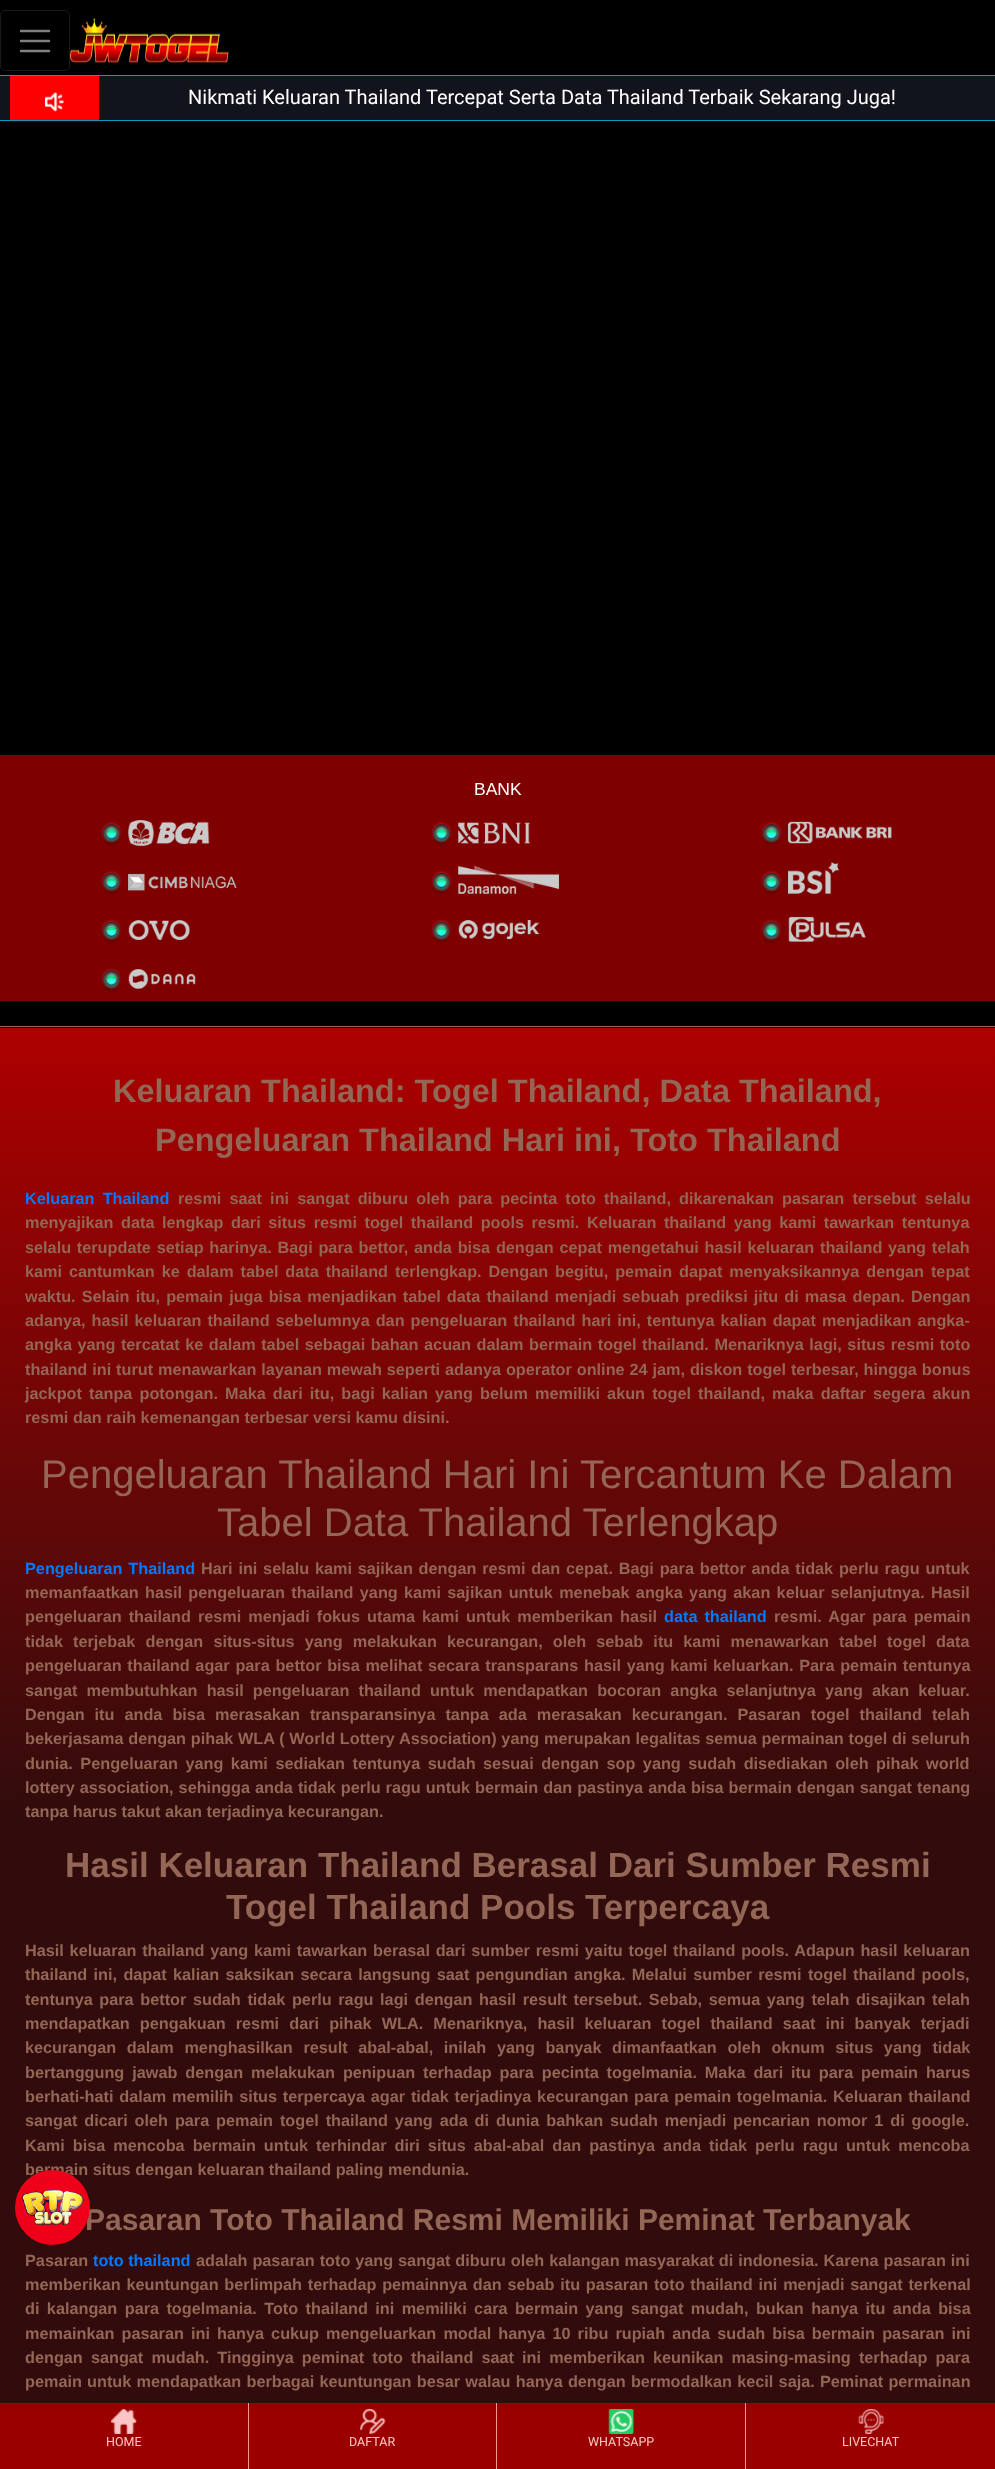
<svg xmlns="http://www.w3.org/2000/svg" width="995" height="2469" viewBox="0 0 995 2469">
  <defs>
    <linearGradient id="g1" gradientUnits="userSpaceOnUse" x1="497" y1="1028" x2="498" y2="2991"><stop offset="0" stop-color="#ae0000"/><stop offset="0.4" stop-color="#320c0c"/></linearGradient>
  </defs>
  <rect width="100%" height="100%" fill="#000"/>
  <rect x="0.5" y="10.5" width="69" height="60" rx="4.5" fill="none" stroke="#1a1a1a"/>
  <path d="M21 31H49M21 41H49M21 51H49" fill="none" stroke="#808080" stroke-width="2.5" stroke-linecap="round"/>
  <image x="70" y="18" width="159" height="45" href="img/1.png"/>
  <path d="M0 75h995v1H0z" fill="#03a1bc"/>
  <path d="M0 120h995v1H0z" fill="#03a1bc"/>
  <path d="M0 76h995v44H0z" fill="#12141d"/>
  <path d="M10 76h89v44H10z" fill="#f00"/>
  <image x="45" y="92" width="19" height="20" href="img/2.png"/>
  <path d="M0 755h995v246H0z" fill="#7f0000"/>
  <image x="101" y="820" width="109" height="27" href="img/3.png"/>
  <image x="431" y="821" width="100" height="26" href="img/4.png"/>
  <image x="761" y="821" width="131" height="26" href="img/5.png"/>
  <image x="101" y="870" width="136" height="25" href="img/6.png"/>
  <image x="431" y="865" width="128" height="30" href="img/7.png"/>
  <image x="761" y="862" width="78" height="33" href="img/8.png"/>
  <image x="101" y="919" width="89" height="25" href="img/9.png"/>
  <image x="431" y="919" width="109" height="25" href="img/10.png"/>
  <image x="761" y="916" width="105" height="28" href="img/11.png"/>
  <image x="101" y="968" width="95" height="25" href="img/12.png"/>
  <path d="M0 1028h995v1375H0z" fill="url(#g1)"/>
  <path d="M0 1026h995v1H0z" fill="#936655"/>
  <path d="M0 2403h995v66H0z" fill="#9a0000"/>
  <path d="M248 2403h1v66H248z" fill="#f59696"/>
  <image x="111" y="2409" width="26" height="25" href="img/14.png"/>
  <path d="M496 2403h1v66H496z" fill="#f59696"/>
  <image x="359" y="2409" width="27" height="25" href="img/15.png"/>
  <path d="M745 2403h1v66H745z" fill="#f59696"/>
  <image x="608" y="2409" width="27" height="25" href="img/16.png"/>
  <image x="858" y="2409" width="26" height="25" href="img/17.png"/>
  <text x="188" y="104" font-family="Roboto" font-size="20" fill="#fff">Nikmati Keluaran Thailand Tercepat Serta Data Thailand Terbaik Sekarang Juga!</text>
  <text x="474" y="795" font-family="Liberation Sans" font-size="17.5" fill="#fff">BANK</text>
  <g font-family="Liberation Sans" font-size="32.5" font-weight="bold" fill="#936655">
    <text x="113" y="1102">Keluaran Thailand: Togel Thailand, Data Thailand,</text>
    <text x="155" y="1151">Pengeluaran Thailand Hari ini, Toto Thailand</text>
  </g>
  <text x="25" y="1204" word-spacing="3.6" font-family="Liberation Sans" font-size="16.25" font-weight="bold" fill="#007bff">Keluaran Thailand</text>
  <g font-family="Liberation Sans" font-size="16.25" font-weight="bold" fill="#936655">
    <text x="178" y="1204" word-spacing="3.6">resmi saat ini sangat diburu oleh para pecinta toto thailand, dikarenakan pasaran tersebut selalu</text>
    <text x="25" y="1228" word-spacing="3">menyajikan data lengkap dari situs resmi togel thailand pools resmi. Keluaran thailand yang kami tawarkan tentunya</text>
    <text x="25" y="1253" word-spacing="1.25">selalu terupdate setiap harinya. Bagi para bettor, anda bisa dengan cepat mengetahui hasil keluaran thailand yang telah</text>
    <text x="25" y="1277" word-spacing="2.4">kami cantumkan ke dalam tabel data thailand terlengkap. Dengan begitu, pemain dapat menyaksikannya dengan tepat</text>
    <text x="25" y="1302" word-spacing="1.6">waktu. Selain itu, pemain juga bisa menjadikan tabel data thailand menjadi sebuah prediksi jitu di masa depan. Dengan</text>
    <text x="25" y="1326" word-spacing="1.5">adanya, hasil keluaran thailand sebelumnya dan pengeluaran thailand hari ini, tentunya kalian dapat menjadikan angka-</text>
    <text x="25" y="1350" word-spacing="1">angka yang tercatat ke dalam tabel sebagai bahan acuan dalam bermain togel thailand. Menariknya lagi, situs resmi toto</text>
    <text x="25" y="1375" word-spacing="0.4">thailand ini turut menawarkan layanan mewah seperti adanya operator online 24 jam, diskon togel terbesar, hingga bonus</text>
    <text x="25" y="1399" word-spacing="2.6">jackpot tanpa potongan. Maka dari itu, bagi kalian yang belum memiliki akun togel thailand, maka daftar segera akun</text>
    <text x="25" y="1423">resmi dan raih kemenangan terbesar versi kamu disini.</text>
  </g>
  <g font-family="Liberation Sans" font-size="40" fill="#936655">
    <text x="41" y="1488">Pengeluaran Thailand Hari Ini Tercantum Ke Dalam</text>
    <text x="217" y="1536">Tabel Data Thailand Terlengkap</text>
  </g>
  <text x="25" y="1574" word-spacing="1.25" font-family="Liberation Sans" font-size="16.25" font-weight="bold" fill="#007bff">Pengeluaran Thailand</text>
  <g font-family="Liberation Sans" font-size="16.25" font-weight="bold" fill="#936655">
    <text x="201" y="1574" word-spacing="1.25">Hari ini selalu kami sajikan dengan resmi dan cepat. Bagi para bettor anda tidak perlu ragu untuk</text>
    <text x="25" y="1598" word-spacing="1.75">memanfaatkan hasil pengeluaran thailand yang kami sajikan untuk menebak angka yang akan keluar selanjutnya. Hasil</text>
    <text x="25" y="1622" word-spacing="2.5">pengeluaran thailand resmi menjadi fokus utama kami untuk memberikan hasil</text>
  </g>
  <text x="664" y="1622" word-spacing="2.5" font-family="Liberation Sans" font-size="16.25" font-weight="bold" fill="#007bff">data thailand</text>
  <g font-family="Liberation Sans" font-size="16.25" font-weight="bold" fill="#936655">
    <text x="774" y="1622" word-spacing="2.5">resmi. Agar para pemain</text>
    <text x="25" y="1647" word-spacing="5.6">tidak terjebak dengan situs-situs yang melakukan kecurangan, oleh sebab itu kami menawarkan tabel togel data</text>
    <text x="25" y="1671" word-spacing="1.2">pengeluaran thailand agar para bettor bisa melihat secara transparans hasil yang kami keluarkan. Para pemain tentunya</text>
    <text x="25" y="1696" word-spacing="4.6">sangat membutuhkan hasil pengeluaran thailand untuk mendapatkan bocoran angka selanjutnya yang akan keluar.</text>
    <text x="25" y="1720" word-spacing="5.5">Dengan itu anda bisa merasakan transparansinya tanpa ada merasakan kecurangan. Pasaran togel thailand telah</text>
    <text x="25" y="1744" word-spacing="0.25">bekerjasama dengan pihak WLA ( World Lottery Association) yang merupakan legalitas semua permainan togel di seluruh</text>
    <text x="25" y="1769" word-spacing="3">dunia. Pengeluaran yang kami sediakan tentunya sudah sesuai dengan sop yang sudah disediakan oleh pihak world</text>
    <text x="25" y="1793" word-spacing="0.5">lottery association, sehingga anda tidak perlu ragu untuk bermain dan pastinya anda bisa bermain dengan sangat tenang</text>
    <text x="25" y="1817">tanpa harus takut akan terjadinya kecurangan.</text>
  </g>
  <g font-family="Liberation Sans" font-size="35" font-weight="bold" fill="#936655">
    <text x="65" y="1877">Hasil Keluaran Thailand Berasal Dari Sumber Resmi</text>
    <text x="226" y="1919">Togel Thailand Pools Terpercaya</text>
  </g>
  <g font-family="Liberation Sans" font-size="16.25" font-weight="bold" fill="#936655">
    <text x="25" y="1956" word-spacing="1.25">Hasil keluaran thailand yang kami tawarkan berasal dari sumber resmi yaitu togel thailand pools. Adapun hasil keluaran</text>
    <text x="25" y="1980" word-spacing="1.8">thailand ini, dapat kalian saksikan secara langsung saat pengundian angka. Melalui sumber resmi togel thailand pools,</text>
    <text x="25" y="2005" word-spacing="2.1">tentunya para bettor sudah tidak perlu ragu lagi dengan hasil result tersebut. Sebab, semua yang telah disajikan telah</text>
    <text x="25" y="2029" word-spacing="5.6">mendapatkan pengakuan resmi dari pihak WLA. Menariknya, hasil keluaran togel thailand saat ini banyak terjadi</text>
    <text x="25" y="2053" word-spacing="6.1">kecurangan dalam menghasilkan result abal-abal, inilah yang banyak dimanfaatkan oleh oknum situs yang tidak</text>
    <text x="25" y="2078" word-spacing="3.4">bertanggung jawab dengan melakukan penipuan terhadap para pecinta togelmania. Maka dari itu para pemain harus</text>
    <text x="25" y="2102" word-spacing="1.25">berhati-hati dalam memilih situs terpercaya agar tidak terjadinya kecurangan para pemain togelmania. Keluaran thailand</text>
    <text x="25" y="2126" word-spacing="2.4">sangat dicari oleh para pemain togel thailand yang ada di dunia bahkan sudah menjadi pencarian nomor 1 di google.</text>
    <text x="25" y="2151" word-spacing="3.5">Kami bisa mencoba bermain untuk terhindar diri situs abal-abal dan pastinya anda tidak perlu ragu untuk mencoba</text>
    <text x="25" y="2175">bermain situs dengan keluaran thailand paling mendunia.</text>
  </g>
  <text x="85" y="2230" font-family="Liberation Sans" font-size="30" font-weight="bold" fill="#936655">Pasaran Toto Thailand Resmi Memiliki Peminat Terbanyak</text>
  <text x="25" y="2266" font-family="Liberation Sans" font-size="16.25" font-weight="bold" fill="#936655">Pasaran</text>
  <text x="93" y="2266" font-family="Liberation Sans" font-size="16.25" font-weight="bold" fill="#007bff">toto thailand</text>
  <g font-family="Liberation Sans" font-size="16.25" font-weight="bold" fill="#936655">
    <text x="196" y="2266" word-spacing="0.4">adalah pasaran toto yang sangat diburu oleh kalangan masyarakat di indonesia. Karena pasaran ini</text>
    <text x="25" y="2290" word-spacing="1.25">memberikan keuntungan berlimpah terhadap pemainnya dan sebab itu pasaran toto thailand ini menjadi sangat terkenal</text>
    <text x="25" y="2314" word-spacing="2.9">di kalangan para togelmania. Toto thailand ini memiliki cara bermain yang sangat mudah, bukan hanya itu anda bisa</text>
    <text x="25" y="2339" word-spacing="2.6">memainkan pasaran ini hanya cukup mengeluarkan modal hanya 10 ribu rupiah anda sudah bisa bermain pasaran ini</text>
    <text x="25" y="2363" word-spacing="3.6">dengan sangat mudah. Tingginya peminat toto thailand saat ini memberikan keunikan masing-masing terhadap para</text>
    <text x="25" y="2387" word-spacing="0.7">pemain untuk mendapatkan berbagai keuntungan besar walau hanya dengan bermodalkan kecil saja. Peminat permainan</text>
  </g>
  <circle cx="52.5" cy="2207.5" r="37.5" fill="#f00018"/>
  <image x="22" y="2190" width="62" height="35" href="img/13.png"/>
  <g font-family="Roboto" font-size="12.5" fill="#fbc5c5">
    <text x="106" y="2446">HOME</text>
    <text x="349" y="2446">DAFTAR</text>
    <text x="588" y="2446">WHATSAPP</text>
    <text x="842" y="2446">LIVECHAT</text>
  </g>
</svg>
